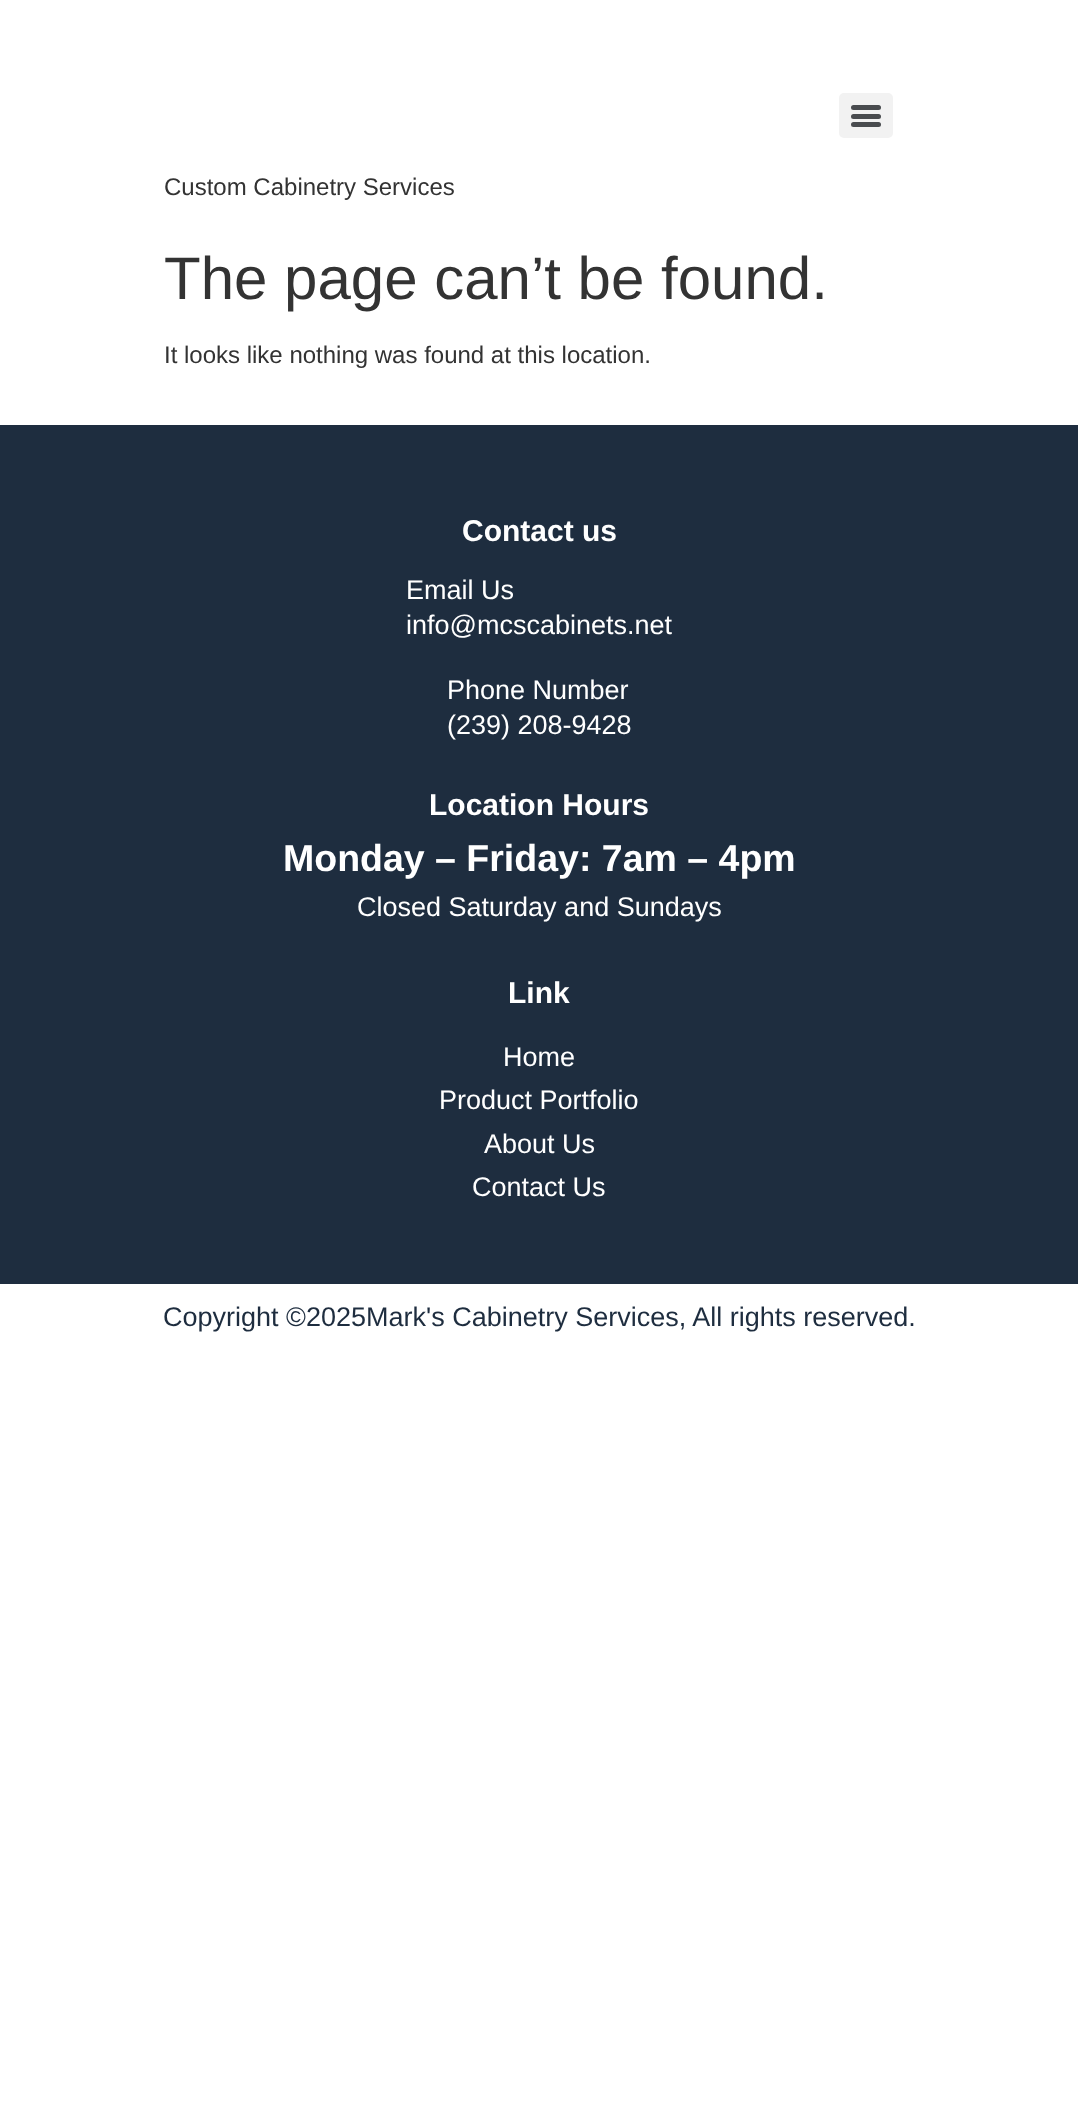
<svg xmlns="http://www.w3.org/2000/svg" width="1078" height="2114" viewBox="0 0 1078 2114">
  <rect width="100%" height="100%" fill="#fff"/>
  <rect x="839" y="93" width="54" height="45" rx="5" fill="#f2f2f2"/>
  <rect x="851" y="114" width="30" height="5" rx="2.5" fill="#494c4f"/>
  <rect x="851" y="105" width="30" height="5" rx="2.5" fill="#494c4f"/>
  <rect x="851" y="122" width="30" height="5" rx="2.5" fill="#494c4f"/>
  <path d="M0 425h1078v859H0z" fill="#1e2d3f"/>
  <text x="164" y="195" font-family="Liberation Sans" font-size="24" fill="#333">Custom Cabinetry Services</text>
  <text x="164" y="299" font-family="Liberation Sans" font-size="60" fill="#333">The page can’t be found.</text>
  <text x="164" y="363" font-family="Liberation Sans" font-size="24" fill="#333">It looks like nothing was found at this location.</text>
  <text x="462" y="541" font-family="Liberation Sans" font-size="30" font-weight="bold" fill="#fff">Contact us</text>
  <g font-family="Liberation Sans" font-size="27" fill="#fff">
    <text x="406" y="599">Email Us</text>
    <text x="406" y="634">info@mcscabinets.net</text>
    <text x="447" y="699">Phone Number</text>
    <text x="447" y="734">(239) 208-9428</text>
  </g>
  <text x="429" y="815" font-family="Liberation Sans" font-size="30" font-weight="bold" fill="#fff">Location Hours</text>
  <text x="283" y="871" font-family="Liberation Sans" font-size="37.5" font-weight="bold" fill="#fff">Monday – Friday: 7am – 4pm</text>
  <text x="357" y="916" font-family="Liberation Sans" font-size="27" fill="#fff">Closed Saturday and Sundays</text>
  <text x="508" y="1003" font-family="Liberation Sans" font-size="30" font-weight="bold" fill="#fff">Link</text>
  <g font-family="Liberation Sans" font-size="27" fill="#fff">
    <text x="503" y="1066">Home</text>
    <text x="439" y="1109">Product Portfolio</text>
    <text x="484" y="1153">About Us</text>
    <text x="472" y="1196">Contact Us</text>
  </g>
  <text x="163" y="1326" font-family="Liberation Sans" font-size="27" fill="#1e2d3f">Copyright ©2025Mark's Cabinetry Services, All rights reserved.</text>
</svg>
